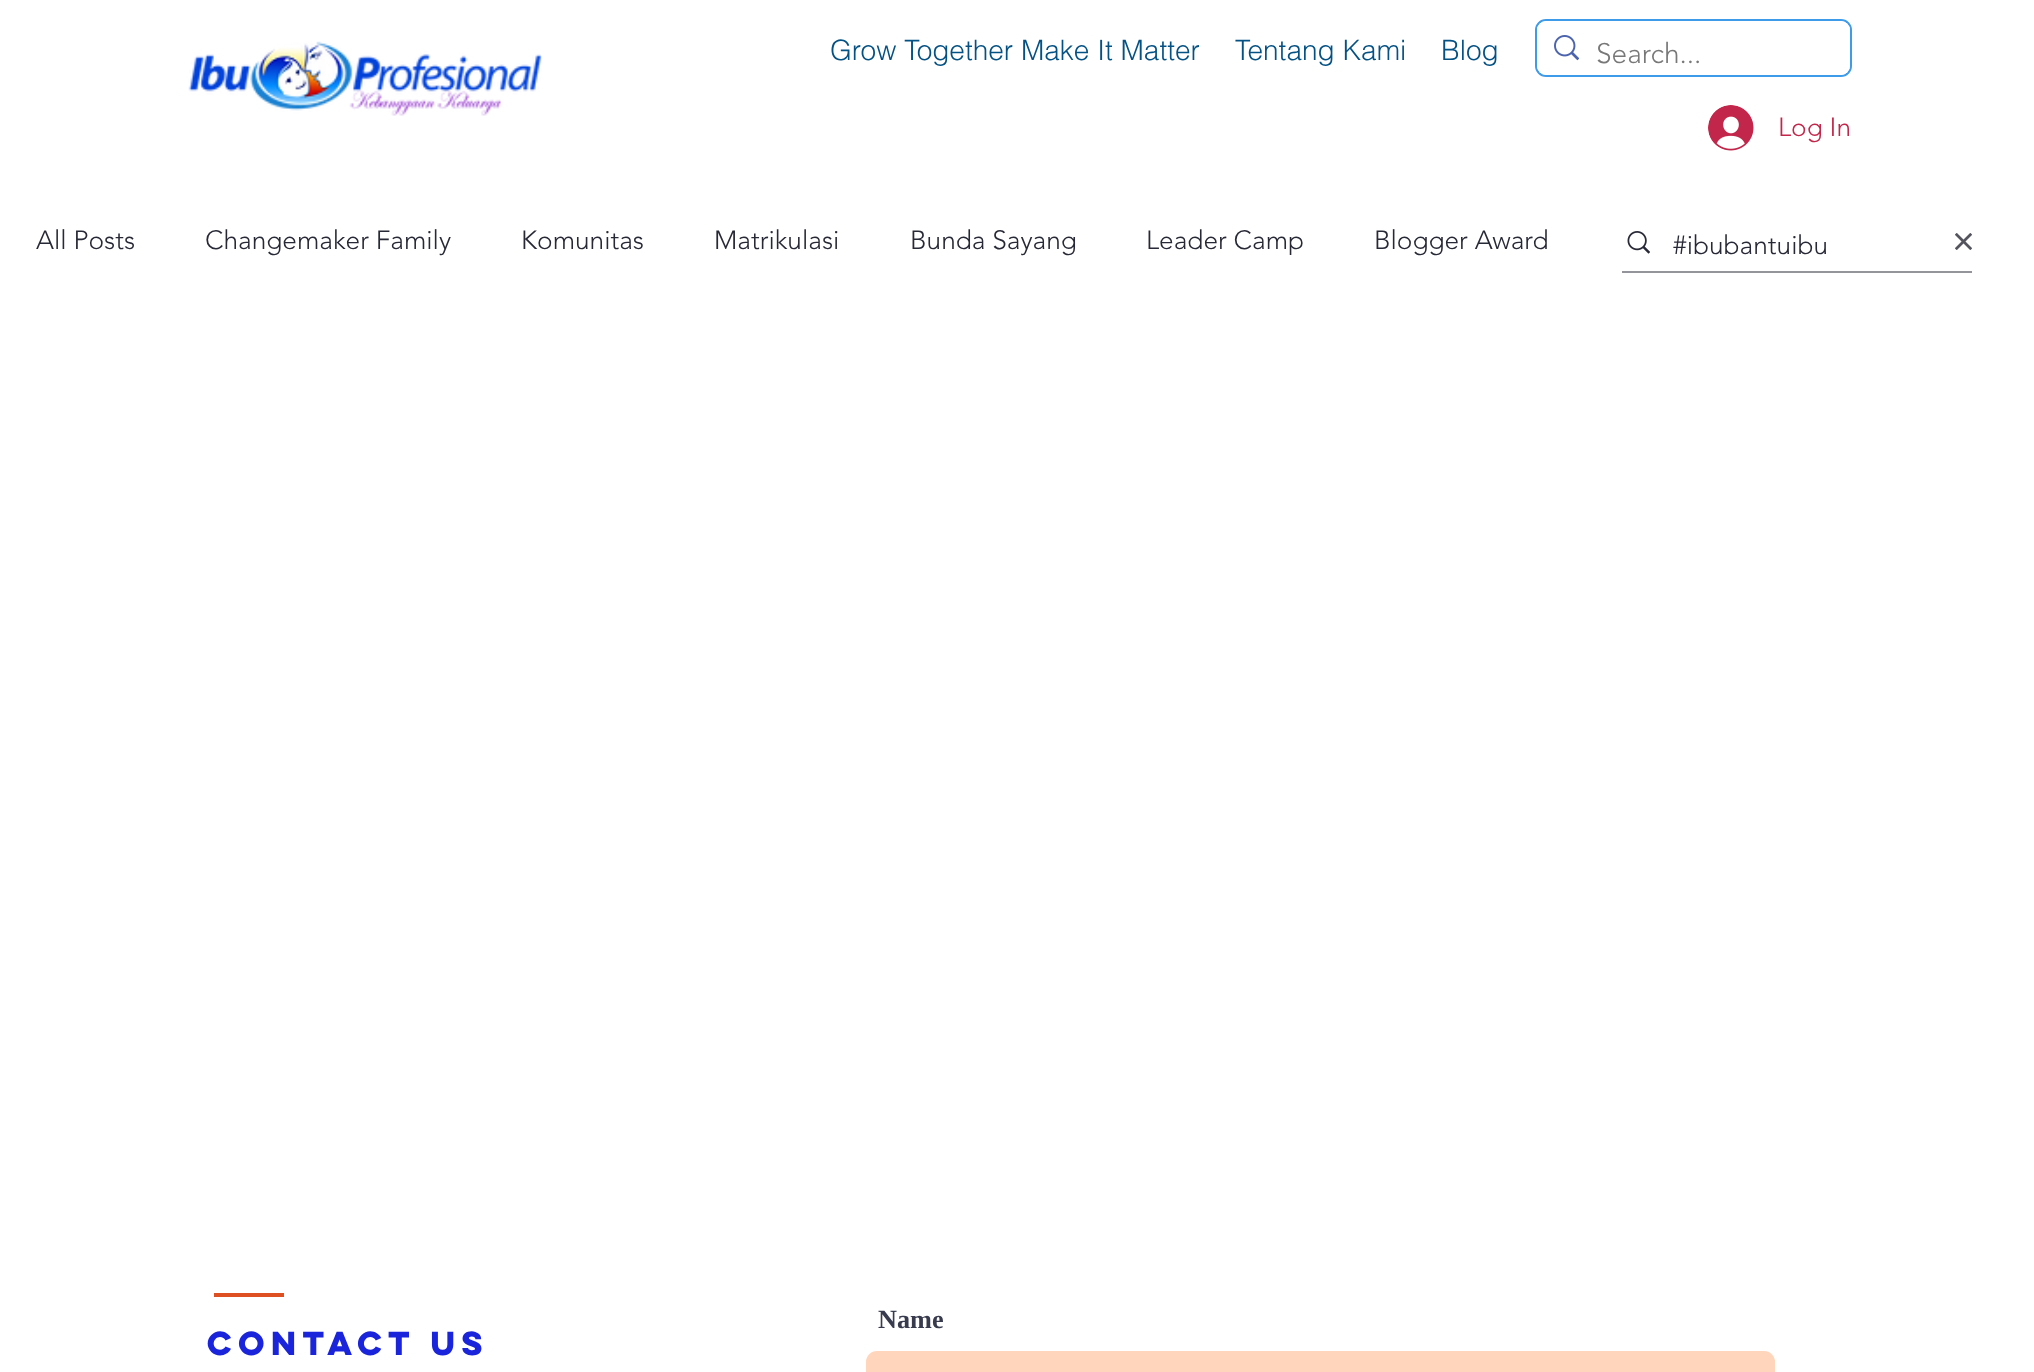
<svg xmlns="http://www.w3.org/2000/svg" width="2034" height="1372" viewBox="0 0 2034 1372">
  <rect width="100%" height="100%" fill="#fff"/>
  <image x="188" y="41" width="354" height="75" href="img/1.png"/>
  <rect x="1536" y="20" width="315" height="56" rx="10" fill="none" stroke="#3d9be9" stroke-width="2"/>
  <rect x="1537" y="21" width="313" height="54" rx="9" fill="#fff"/>
  <image x="1554" y="35" width="25" height="26" href="img/2.png"/>
  <image x="1708" y="105" width="46" height="46" href="img/3.png"/>
  <image x="1627" y="231" width="23" height="23" href="img/4.png"/>
  <image x="1955" y="233" width="17" height="17" href="img/5.png"/>
  <path d="M1622 271h350v2H1622z" fill="#94949b"/>
  <path d="M214 1293h70v4H214z" fill="#de5021"/>
  <rect x="866" y="1351" width="909" height="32" rx="11" fill="#ffd5bb"/>
  <g font-family="helvetica" font-size="28" font-weight="300" fill="#045184">
    <text x="830" y="60">Grow Together Make It Matter</text>
    <text x="1235" y="60">Tentang Kami</text>
    <text x="1441" y="60">Blog</text>
  </g>
  <text x="1596" y="63" font-family="'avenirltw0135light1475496'" font-size="28" font-weight="300" fill="#787878">Search...</text>
  <text x="1778" y="136" font-family="'avenirltw0135light1475496'" font-size="26.25" font-weight="300" fill="#c2274b">Log In</text>
  <g font-family="'avenirltw0135light1475496'" font-size="26.25" font-weight="300" fill="#282936">
    <text x="36" y="249">All Posts</text>
    <text x="205" y="249">Changemaker Family</text>
    <text x="521" y="249">Komunitas</text>
    <text x="714" y="249">Matrikulasi</text>
    <text x="910" y="249">Bunda Sayang</text>
    <text x="1146" y="249">Leader Camp</text>
    <text x="1374" y="249">Blogger Award</text>
    <text x="1673" y="254">#ibubantuibu</text>
  </g>
  <text x="878" y="1328" font-family="Liberation Serif" font-size="26.25" font-weight="bold" fill="#373b4d">Name</text>
  <text x="207" y="1355" font-family="'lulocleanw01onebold'" font-size="29.75" font-weight="bold" fill="#1a24db">Contact us</text>
</svg>
